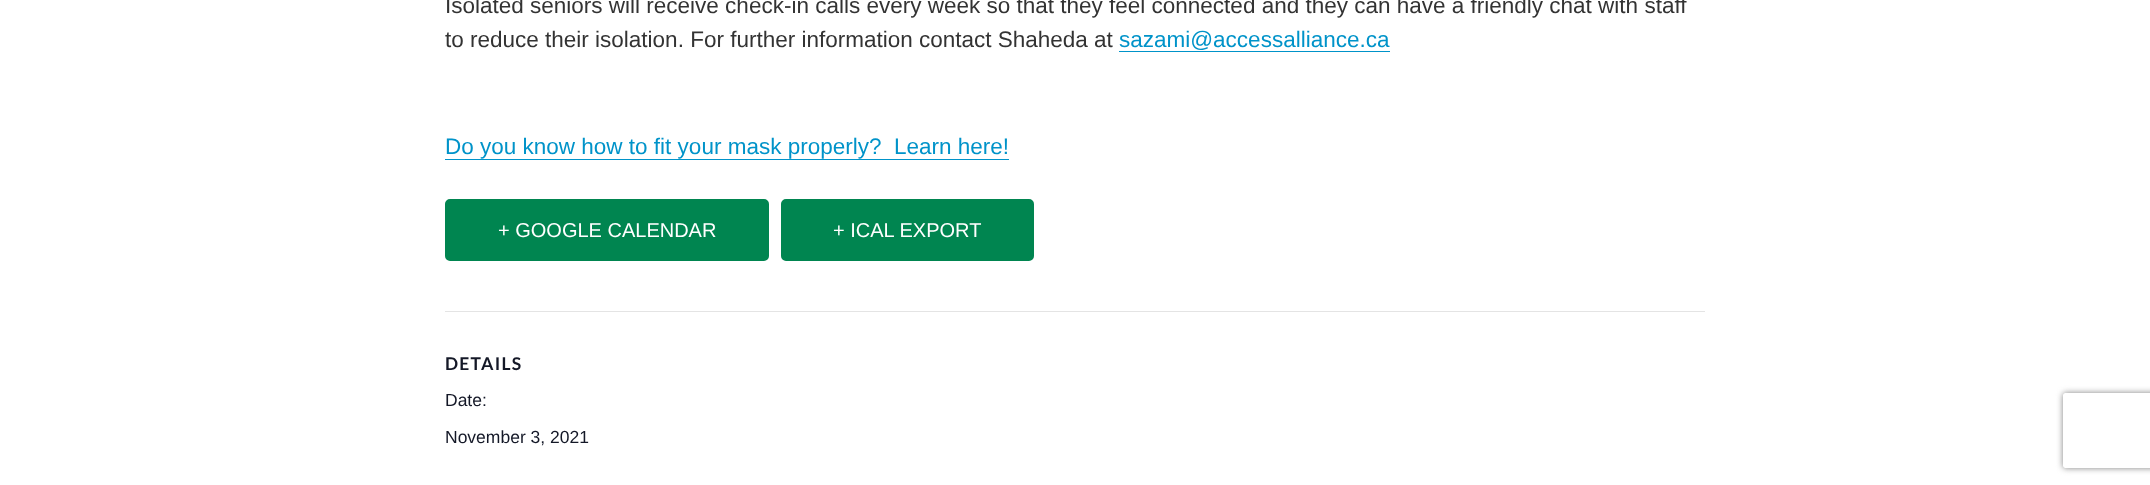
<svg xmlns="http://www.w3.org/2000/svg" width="2150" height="485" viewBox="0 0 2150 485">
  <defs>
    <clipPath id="clip1"><path d="M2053 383H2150V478H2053ZM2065.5 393H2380.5C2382 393 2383 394 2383 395.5V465.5C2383 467 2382 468 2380.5 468H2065.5C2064 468 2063 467 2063 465.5V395.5C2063 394 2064 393 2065.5 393Z" clip-rule="evenodd"/></clipPath>
  </defs>
  <rect width="100%" height="100%" fill="#fff"/>
  <path d="M1119 51h271v1H1119z" fill="#0093c9"/>
  <path d="M445 159h564v1H445z" fill="#0093c9"/>
  <rect x="446.5" y="200.5" width="321" height="59" rx="3.5" fill="#008550" stroke="#008550" stroke-width="3"/>
  <rect x="782.5" y="200.5" width="250" height="59" rx="3.5" fill="#008550" stroke="#008550" stroke-width="3"/>
  <path d="M445 311h1260v1H445z" fill="#e4e4e4"/>
  <g clip-path="url(#clip1)">
    <rect x="2063" y="393" width="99" height="75" rx="2.5" fill="#808080" filter="blur(3px)"/>
  </g>
  <g font-family="Liberation Sans" font-size="22.5" fill="#333">
    <text x="445" y="13">Isolated seniors will receive check-in calls every week so that they feel connected and they can have a friendly chat with staff</text>
    <text x="445" y="47">to reduce their isolation. For further information contact Shaheda at</text>
  </g>
  <g font-family="Liberation Sans" font-size="22.5" fill="#0093c9">
    <text x="1119" y="47">sazami@accessalliance.ca</text>
    <text x="445" y="154" xml:space="preserve">Do you know how to fit your mask properly?  Learn here!</text>
  </g>
  <g font-family="Liberation Sans" font-size="20" fill="#fff">
    <text x="498" y="237">+ GOOGLE CALENDAR</text>
    <text x="833" y="237">+ ICAL EXPORT</text>
  </g>
  <text x="445" y="370" font-family="Lato" font-size="17.5" font-weight="bold" letter-spacing="1.25" fill="#141827">DETAILS</text>
  <g font-family="Liberation Sans" font-size="17.5" fill="#141827">
    <text x="445" y="406">Date:</text>
    <text x="445" y="443">November 3, 2021</text>
  </g>
</svg>
